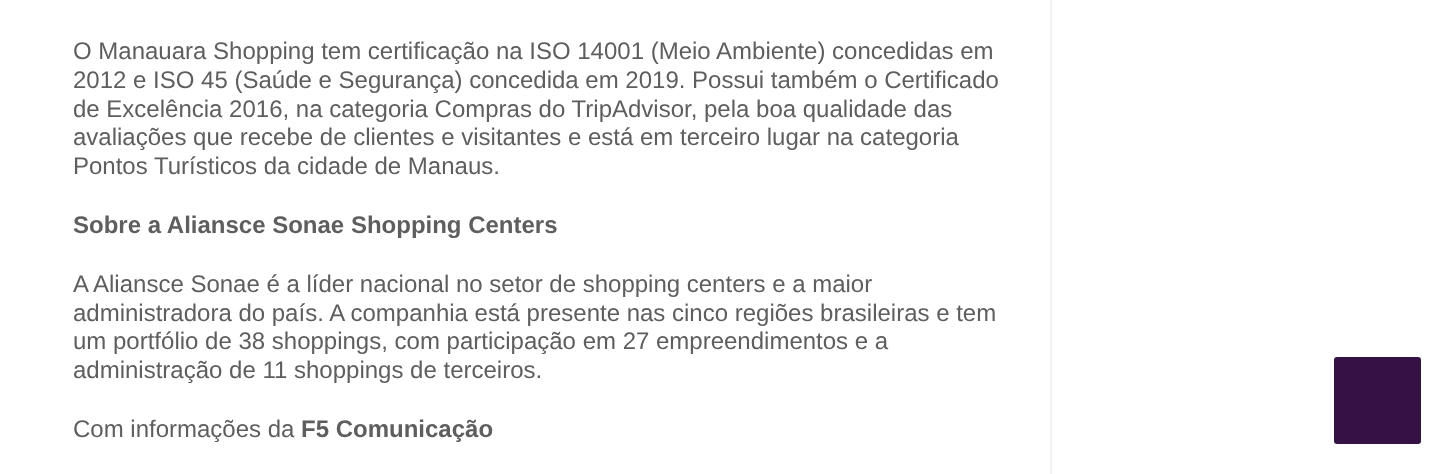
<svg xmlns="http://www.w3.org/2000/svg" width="1450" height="474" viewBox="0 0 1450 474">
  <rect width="100%" height="100%" fill="#fff"/>
  <path d="M1050 0h2v474H1050z" fill="#f1f1f1"/>
  <rect x="1334" y="357" width="87" height="87" rx="3" fill="#351246"/>
  <g font-family="Liberation Sans" font-size="24" fill="#5e5e5e">
    <text x="73" y="59">O Manauara Shopping tem certificação na ISO 14001 (Meio Ambiente) concedidas em</text>
    <text x="73" y="88">2012 e ISO 45 (Saúde e Segurança) concedida em 2019. Possui também o Certificado</text>
    <text x="73" y="117">de Excelência 2016, na categoria Compras do TripAdvisor, pela boa qualidade das</text>
    <text x="73" y="145">avaliações que recebe de clientes e visitantes e está em terceiro lugar na categoria</text>
    <text x="73" y="174">Pontos Turísticos da cidade de Manaus.</text>
  </g>
  <text x="73" y="233" font-family="Liberation Sans" font-size="24" font-weight="bold" fill="#5e5e5e">Sobre a Aliansce Sonae Shopping Centers</text>
  <g font-family="Liberation Sans" font-size="24" fill="#5e5e5e">
    <text x="73" y="292">A Aliansce Sonae é a líder nacional no setor de shopping centers e a maior</text>
    <text x="73" y="321">administradora do país. A companhia está presente nas cinco regiões brasileiras e tem</text>
    <text x="73" y="349">um portfólio de 38 shoppings, com participação em 27 empreendimentos e a</text>
    <text x="73" y="378">administração de 11 shoppings de terceiros.</text>
    <text x="73" y="437">Com informações da</text>
  </g>
  <text x="301" y="437" font-family="Liberation Sans" font-size="24" font-weight="bold" fill="#5e5e5e">F5 Comunicação</text>
</svg>
